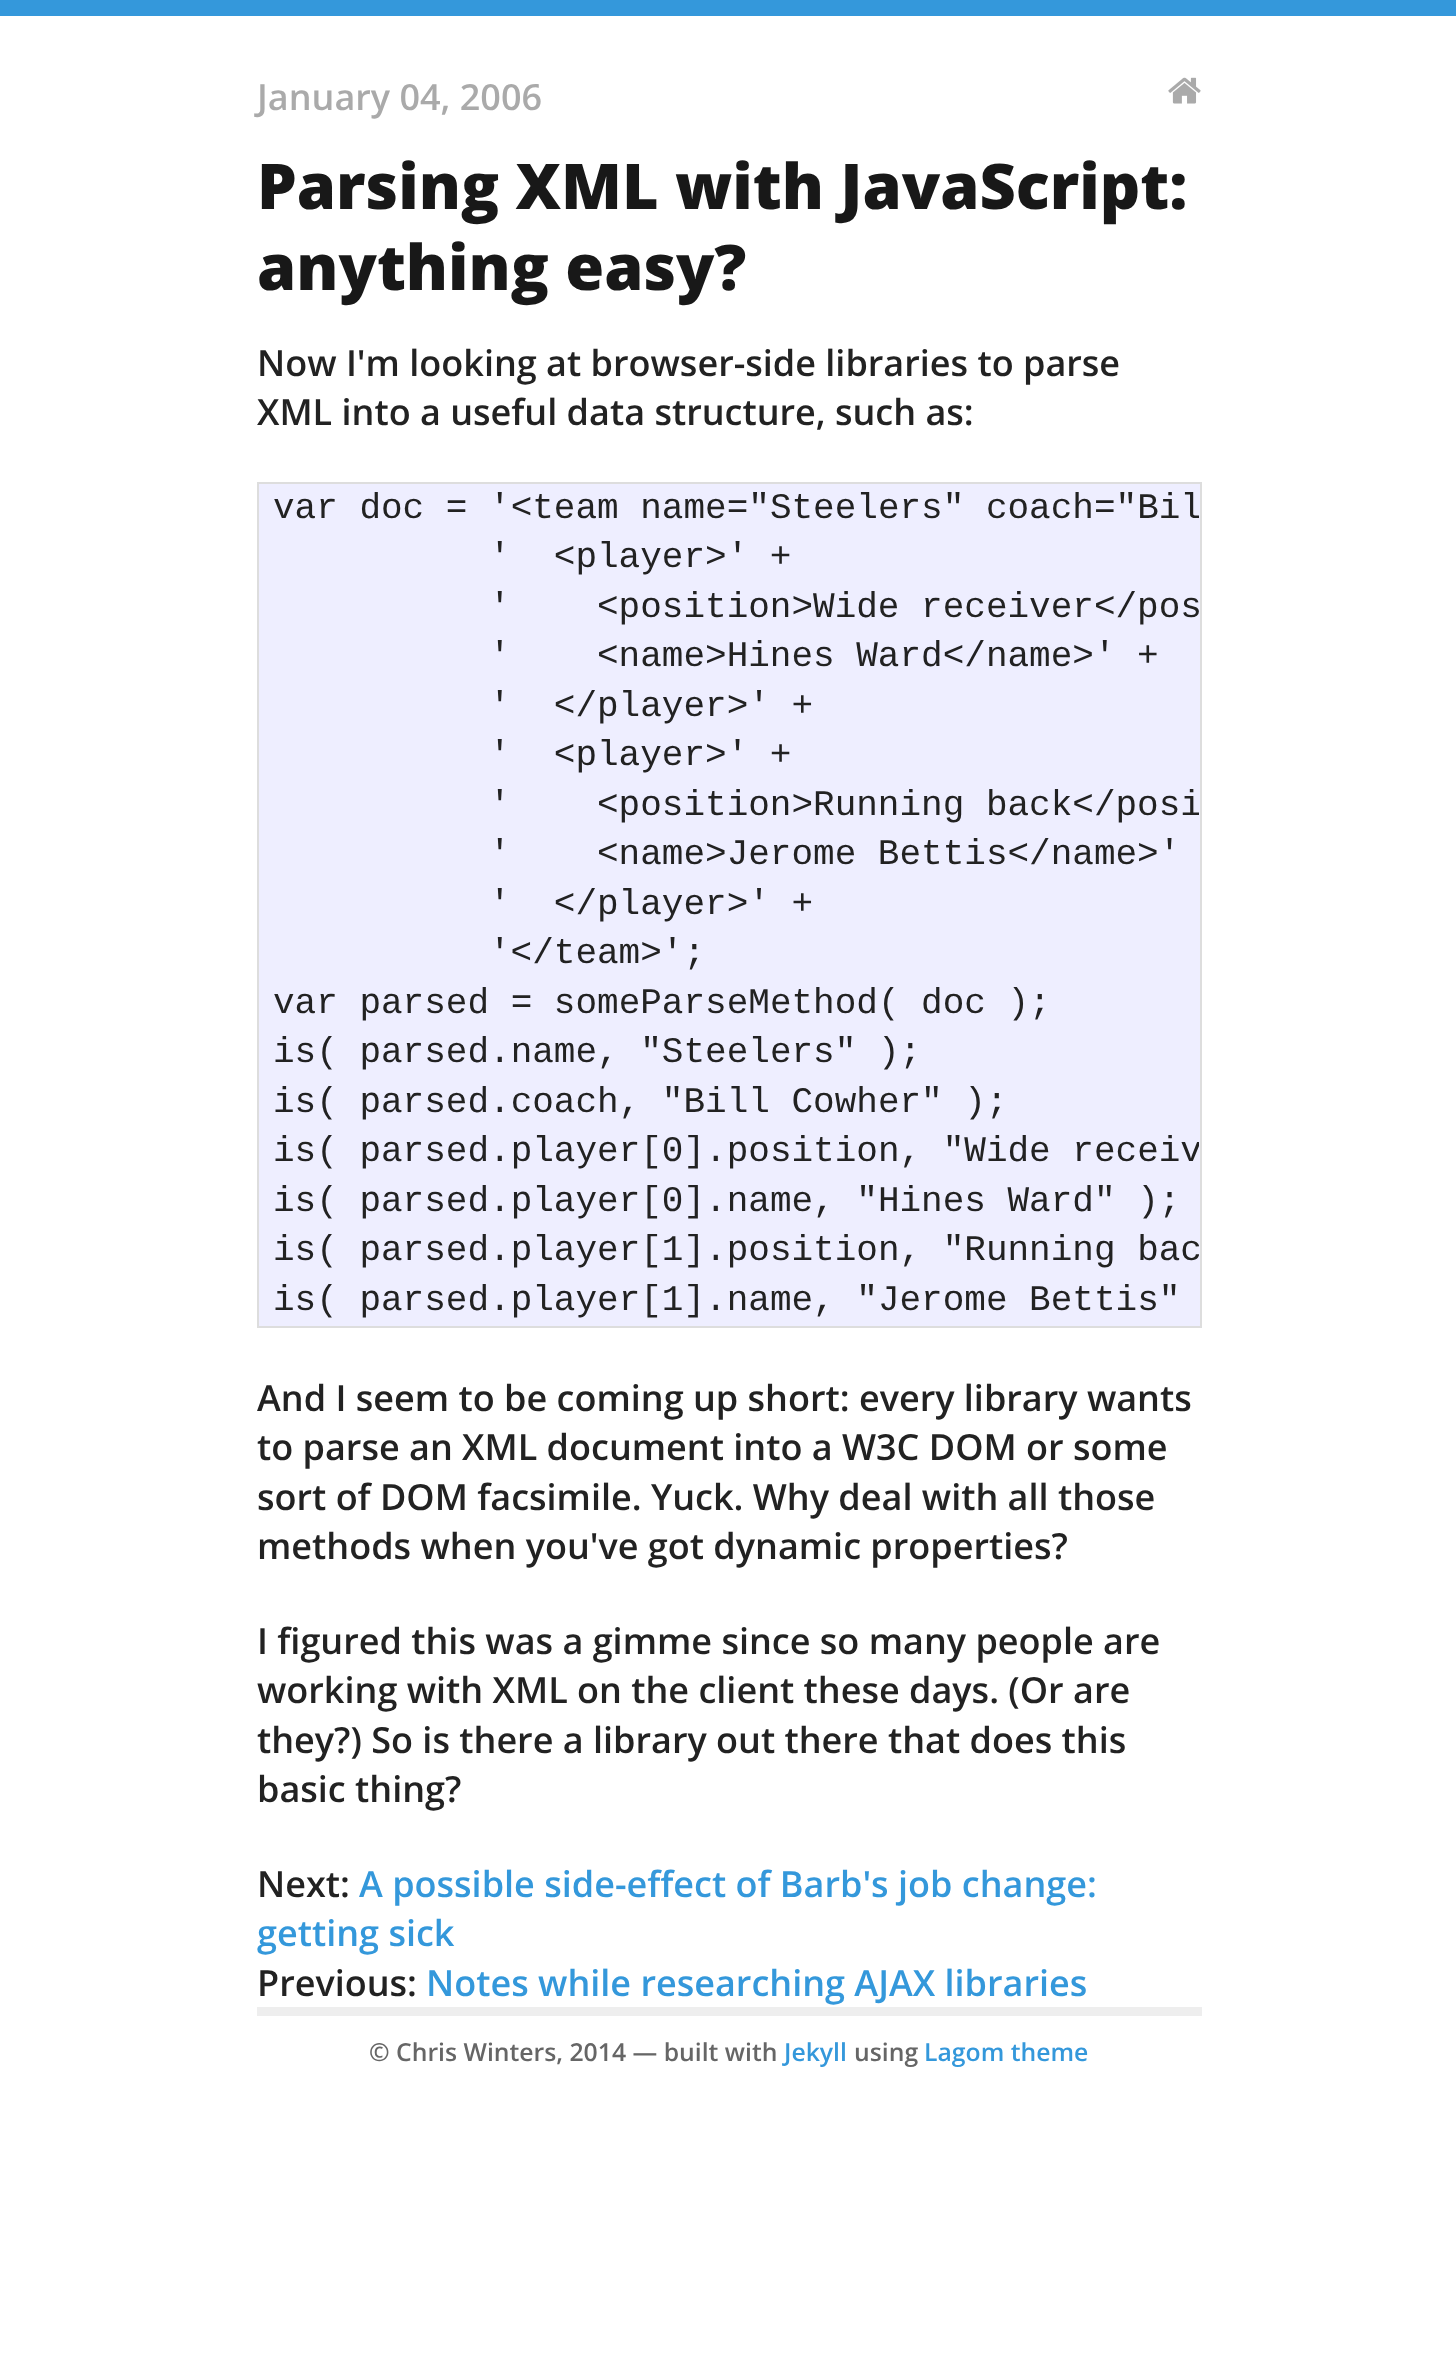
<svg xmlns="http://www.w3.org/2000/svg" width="1456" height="2364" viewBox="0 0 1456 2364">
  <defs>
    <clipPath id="clip1"><path d="M259 484h940v841H259z"/></clipPath>
  </defs>
  <rect width="100%" height="100%" fill="#fff"/>
  <path d="M0 0h1456v16H0z" fill="#3498db"/>
  <image x="1168" y="77" width="33" height="27" href="img/1.png"/>
  <path d="M258 483h943v844H258z" fill="#eef" stroke="#ddd" stroke-width="2"/>
  <path d="M257 2007h945v9H257z" fill="#eee"/>
  <text x="257" y="110" font-family="Open Sans" font-size="36" font-weight="600" fill="#aaa">January 04, 2006</text>
  <g font-family="Open Sans" font-size="63" font-weight="800" fill="#181818">
    <text x="257" y="209">Parsing XML with JavaScript:</text>
    <text x="257" y="290">anything easy?</text>
  </g>
  <g font-family="Open Sans" font-size="36" font-weight="600" fill="#222">
    <text x="257" y="376">Now I'm looking at browser-side libraries to parse</text>
    <text x="257" y="425">XML into a useful data structure, such as:</text>
  </g>
  <g clip-path="url(#clip1)">
    <text x="273" y="518" font-family="Liberation Mono" font-size="36" fill="#222">var doc = '&lt;team name="Steelers" coach="Bil</text>
  </g>
  <g font-family="Liberation Mono" font-size="36" fill="#222">
    <text x="489" y="567" xml:space="preserve">'  &lt;player&gt;' +</text>
    <text x="489" y="617" xml:space="preserve">'    &lt;position&gt;Wide receiver&lt;/pos</text>
    <text x="489" y="666" xml:space="preserve">'    &lt;name&gt;Hines Ward&lt;/name&gt;' +</text>
    <text x="489" y="716" xml:space="preserve">'  &lt;/player&gt;' +</text>
    <text x="489" y="765" xml:space="preserve">'  &lt;player&gt;' +</text>
  </g>
  <g clip-path="url(#clip1)">
    <text x="489" y="815" font-family="Liberation Mono" font-size="36" fill="#222" xml:space="preserve">'    &lt;position&gt;Running back&lt;/posi</text>
  </g>
  <g font-family="Liberation Mono" font-size="36" fill="#222">
    <text x="489" y="864" xml:space="preserve">'    &lt;name&gt;Jerome Bettis&lt;/name&gt;'</text>
    <text x="489" y="914" xml:space="preserve">'  &lt;/player&gt;' +</text>
    <text x="489" y="963">'&lt;/team&gt;';</text>
    <text x="273" y="1013">var parsed = someParseMethod( doc );</text>
    <text x="273" y="1062">is( parsed.name, "Steelers" );</text>
    <text x="273" y="1112">is( parsed.coach, "Bill Cowher" );</text>
  </g>
  <g clip-path="url(#clip1)">
    <text x="273" y="1161" font-family="Liberation Mono" font-size="36" fill="#222">is( parsed.player[0].position, "Wide receiv</text>
  </g>
  <text x="273" y="1211" font-family="Liberation Mono" font-size="36" fill="#222">is( parsed.player[0].name, "Hines Ward" );</text>
  <g clip-path="url(#clip1)">
    <text x="273" y="1260" font-family="Liberation Mono" font-size="36" fill="#222">is( parsed.player[1].position, "Running bac</text>
  </g>
  <text x="273" y="1310" font-family="Liberation Mono" font-size="36" fill="#222">is( parsed.player[1].name, "Jerome Bettis"</text>
  <g font-family="Open Sans" font-size="36" font-weight="600" fill="#222">
    <text x="257" y="1411">And I seem to be coming up short: every library wants</text>
    <text x="257" y="1460">to parse an XML document into a W3C DOM or some</text>
    <text x="257" y="1510">sort of DOM facsimile. Yuck. Why deal with all those</text>
    <text x="257" y="1559">methods when you've got dynamic properties?</text>
    <text x="257" y="1654">I figured this was a gimme since so many people are</text>
    <text x="257" y="1703">working with XML on the client these days. (Or are</text>
    <text x="257" y="1753">they?) So is there a library out there that does this</text>
    <text x="257" y="1802">basic thing?</text>
    <text x="257" y="1897">Next:</text>
  </g>
  <g font-family="Open Sans" font-size="36" font-weight="600" fill="#3498db">
    <text x="359" y="1897">A possible side-effect of Barb's job change:</text>
    <text x="257" y="1946">getting sick</text>
  </g>
  <text x="257" y="1996" font-family="Open Sans" font-size="36" font-weight="600" fill="#222">Previous:</text>
  <text x="426" y="1996" font-family="Open Sans" font-size="36" font-weight="600" fill="#3498db">Notes while researching AJAX libraries</text>
  <text x="369" y="2061" font-family="Open Sans" font-size="24.75" font-weight="600" fill="#666">© Chris Winters, 2014 — built with</text>
  <text x="784" y="2061" font-family="Open Sans" font-size="24.75" font-weight="600" fill="#3498db">Jekyll</text>
  <text x="854" y="2061" font-family="Open Sans" font-size="24.75" font-weight="600" fill="#666">using</text>
  <text x="924" y="2061" font-family="Open Sans" font-size="24.75" font-weight="600" fill="#3498db">Lagom theme</text>
</svg>
